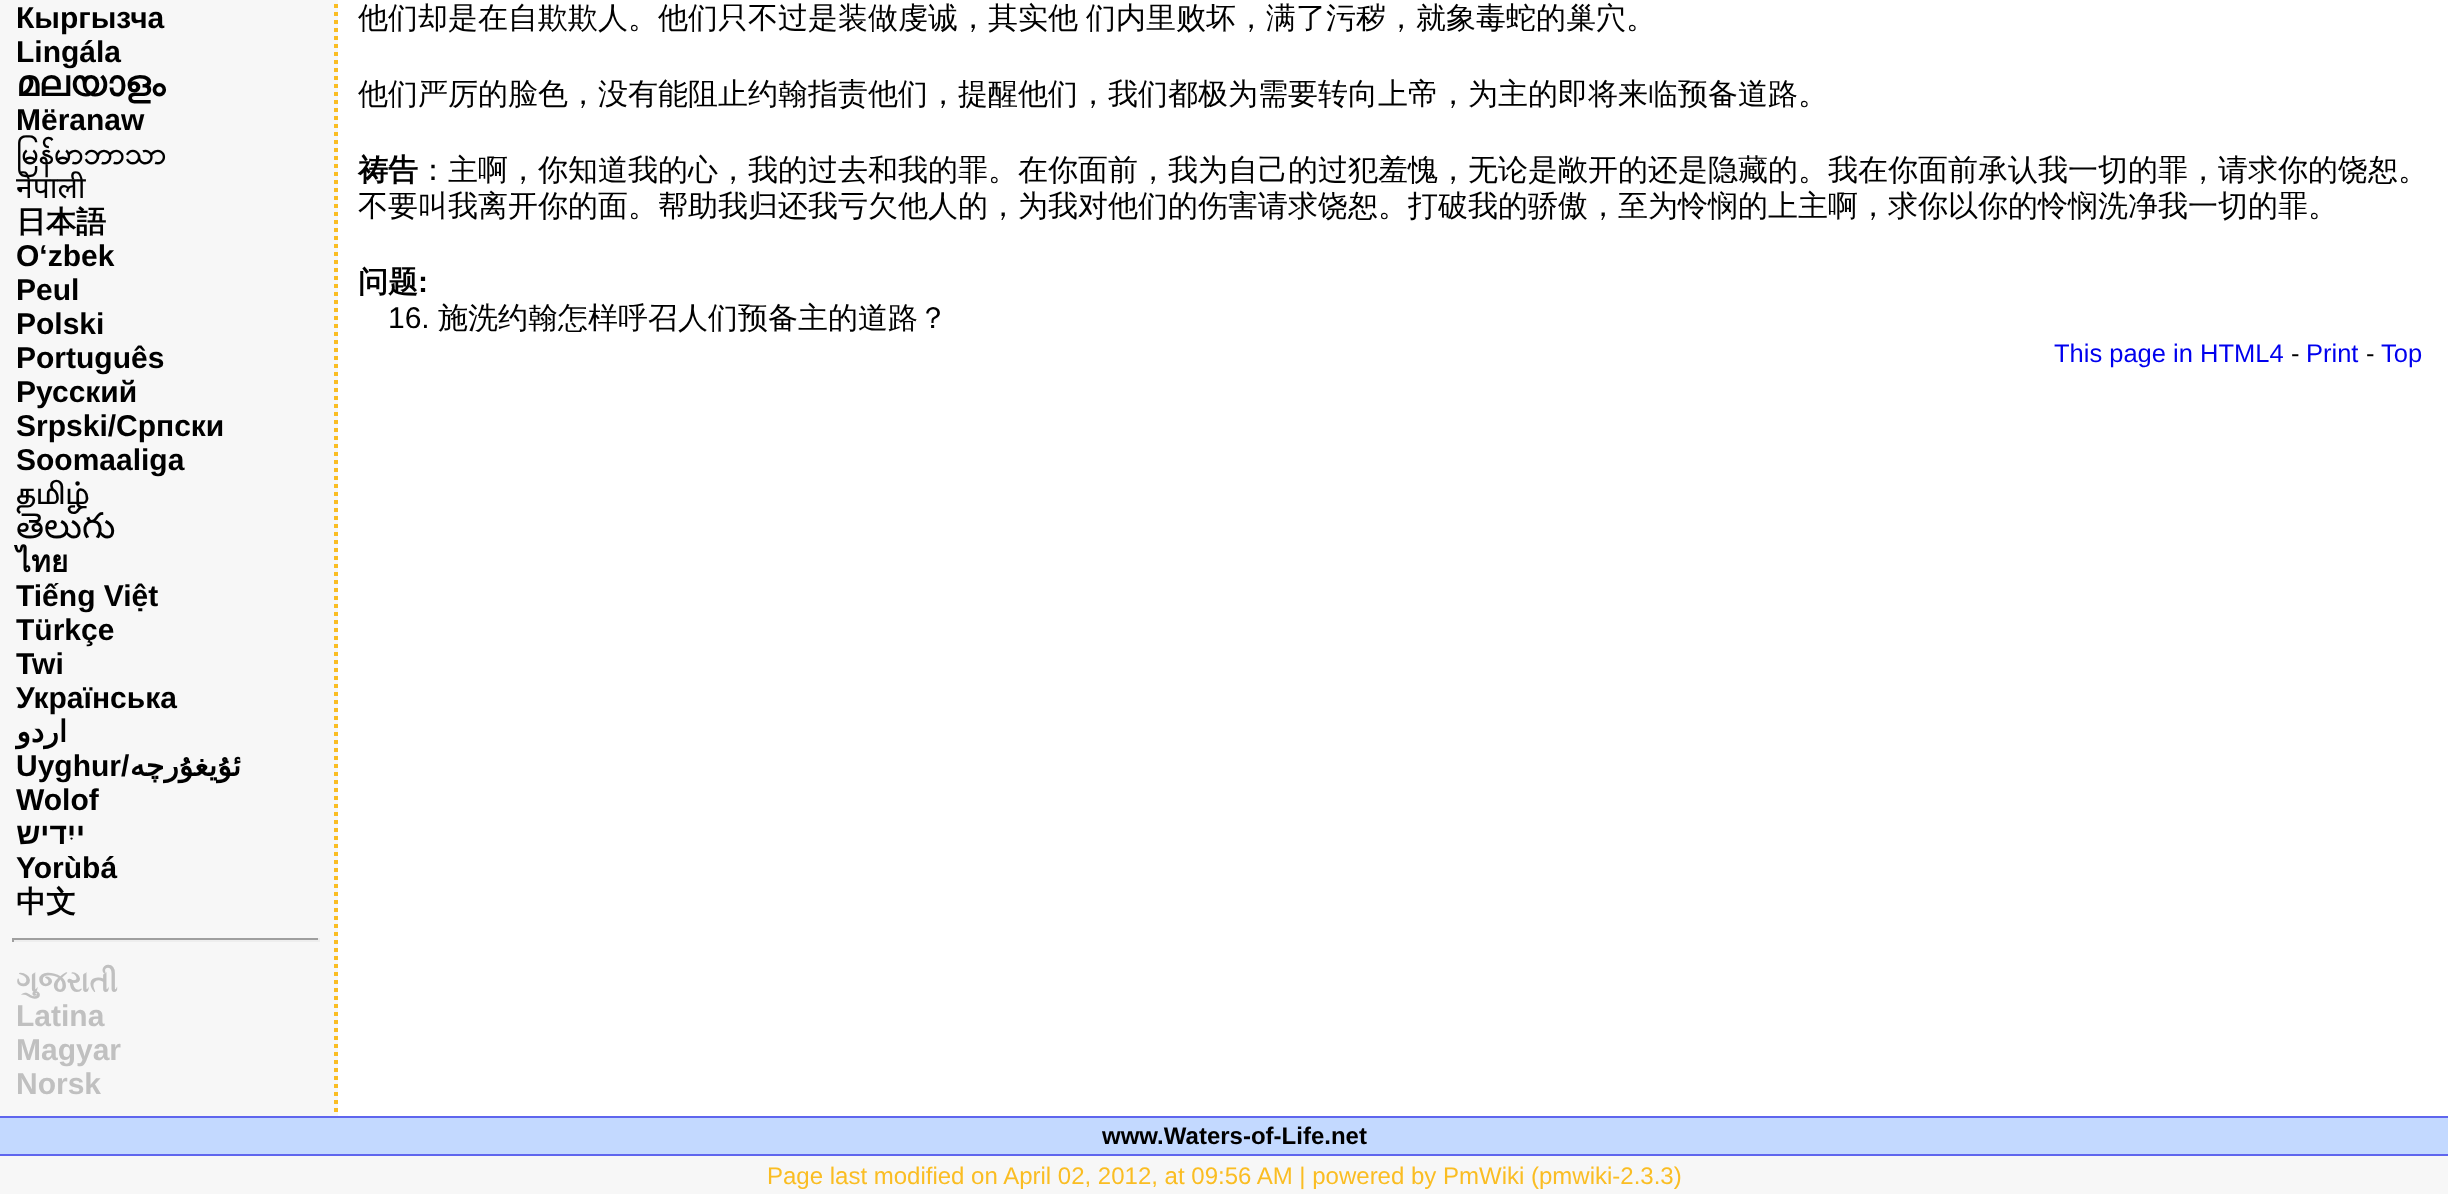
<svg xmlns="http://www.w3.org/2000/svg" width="2448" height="1194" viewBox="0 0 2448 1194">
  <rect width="100%" height="100%" fill="#f7f7f7"/>
  <path d="M336-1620V1116" fill="none" stroke="#fabd23" stroke-width="4" stroke-dasharray="4 4"/>
  <path d="M12 938h308v2H12z" fill="#9f9f9f"/>
  <path d="M318 938h2v4H318z" fill="#eee"/>
  <path d="M12 940h308v2H12z" fill="#eee"/>
  <path d="M12 938h2v4H12z" fill="#9f9f9f"/>
  <path d="M338 0h2110v1116H338z" fill="#fff"/>
  <path d="M0 1118h2448v36H0z" fill="#c3d9ff"/>
  <path d="M0 1116h2448v2H0z" fill="#5f66ee"/>
  <path d="M0 1154h2448v2H0z" fill="#5f66ee"/>
  <g font-family="Liberation Sans" font-size="30" font-weight="bold" fill="#000">
    <text x="16" y="28">Кыргызча</text>
    <text x="16" y="62">Lingála</text>
  </g>
  <text x="16" y="96" font-family="FreeSans" font-size="36" font-weight="bold" fill="#000">മലയാളം</text>
  <text x="16" y="130" font-family="Liberation Sans" font-size="30" font-weight="bold" fill="#000">Mëranaw</text>
  <text x="16" y="164" font-family="Padauk" font-size="30" font-weight="bold" fill="#000">မြန်မာဘာသာ</text>
  <text x="16" y="198" font-family="Noto Sans" font-size="30" fill="#000">नेपाली</text>
  <text x="16" y="232" font-family="WenQuanYi Zen Hei" font-size="30" font-weight="bold" fill="#000">日本語</text>
  <g font-family="Liberation Sans" font-size="30" font-weight="bold" fill="#000">
    <text x="16" y="266">O‘zbek</text>
    <text x="16" y="300">Peul</text>
    <text x="16" y="334">Polski</text>
    <text x="16" y="368">Português</text>
    <text x="16" y="402">Русский</text>
    <text x="16" y="436">Srpski/Српски</text>
    <text x="16" y="470">Soomaaliga</text>
  </g>
  <text x="16" y="504" font-family="Lohit Tamil" font-size="30" font-weight="bold" fill="#000">தமிழ்</text>
  <text x="16" y="538" font-family="Noto Sans Telugu" font-size="36" fill="#000">తెలుగు</text>
  <text x="16" y="572" font-family="Loma" font-size="30" font-weight="bold" fill="#000">ไทย</text>
  <g font-family="Liberation Sans" font-size="30" font-weight="bold" fill="#000">
    <text x="16" y="606">Tiếng Việt</text>
    <text x="16" y="640">Türkçe</text>
    <text x="16" y="674">Twi</text>
    <text x="16" y="708">Українська</text>
  </g>
  <text x="67" y="742" font-family="DejaVu Sans" font-size="30" font-weight="bold" direction="rtl" fill="#000">اردو</text>
  <text x="16" y="776" font-family="Liberation Sans" font-size="30" font-weight="bold" fill="#000">Uyghur/</text>
  <text x="241" y="776" font-family="DejaVu Sans" font-size="30" font-weight="bold" direction="rtl" fill="#000">ئۇيغۇرچه</text>
  <text x="16" y="810" font-family="Liberation Sans" font-size="30" font-weight="bold" fill="#000">Wolof</text>
  <text x="85" y="844" font-family="Liberation Sans" font-size="30" font-weight="bold" direction="rtl" fill="#000">ייִדיש</text>
  <text x="16" y="878" font-family="Liberation Sans" font-size="30" font-weight="bold" fill="#000">Yorùbá</text>
  <text x="16" y="912" font-family="WenQuanYi Zen Hei" font-size="30" font-weight="bold" fill="#000">中文</text>
  <text x="16" y="992" font-family="FreeSerif" font-size="30" font-weight="bold" fill="#c0c0c0">ગુજરાતી</text>
  <g font-family="Liberation Sans" font-size="30" font-weight="bold" fill="#c0c0c0">
    <text x="16" y="1026">Latina</text>
    <text x="16" y="1060">Magyar</text>
    <text x="16" y="1094">Norsk</text>
  </g>
  <g font-family="WenQuanYi Zen Hei" font-size="30" font-weight="500" fill="#000">
    <text x="358" y="28" word-spacing="-1">他们却是在自欺欺人。他们只不过是装做虔诚，其实他 们内里败坏，满了污秽，就象毒蛇的巢穴。</text>
    <text x="358" y="104">他们严厉的脸色，没有能阻止约翰指责他们，提醒他们，我们都极为需要转向上帝，为主的即将来临预备道路。</text>
  </g>
  <text x="358" y="180" font-family="WenQuanYi Zen Hei" font-size="30" font-weight="bold" fill="#000">祷告</text>
  <g font-family="WenQuanYi Zen Hei" font-size="30" font-weight="500" fill="#000">
    <text x="418" y="180">：主啊，你知道我的心，我的过去和我的罪。在你面前，我为自己的过犯羞愧，无论是敞开的还是隐藏的。我在你面前承认我一切的罪，请求你的饶恕。</text>
    <text x="358" y="216">不要叫我离开你的面。帮助我归还我亏欠他人的，为我对他们的伤害请求饶恕。打破我的骄傲，至为怜悯的上主啊，求你以你的怜悯洗净我一切的罪。</text>
  </g>
  <text x="358" y="292" font-family="WenQuanYi Zen Hei" font-size="30" font-weight="bold" fill="#000">问题</text>
  <text x="418" y="292" font-family="Liberation Sans" font-size="30" font-weight="bold" fill="#000">:</text>
  <text x="388" y="328" font-family="Liberation Sans" font-size="30" fill="#000">16.</text>
  <text x="438" y="328" font-family="WenQuanYi Zen Hei" font-size="30" font-weight="500" fill="#000">施洗约翰怎样呼召人们预备主的道路？</text>
  <text x="2054" y="362" font-family="Liberation Sans" font-size="25.5" fill="#00e">This page in HTML4</text>
  <text x="2291" y="362" font-family="Liberation Sans" font-size="25.5" fill="#000">-</text>
  <text x="2306" y="362" font-family="Liberation Sans" font-size="25.5" fill="#00e">Print</text>
  <text x="2366" y="362" font-family="Liberation Sans" font-size="25.5" fill="#000">-</text>
  <text x="2381" y="362" font-family="Liberation Sans" font-size="25.5" fill="#00e">Top</text>
  <text x="1102" y="1144" font-family="Liberation Sans" font-size="24" font-weight="bold" fill="#000">www.Waters-of-Life.net</text>
  <text x="767" y="1184" font-family="Liberation Sans" font-size="24" fill="#fabd23">Page last modified on April 02, 2012, at 09:56 AM | powered by PmWiki (pmwiki-2.3.3)</text>
</svg>
